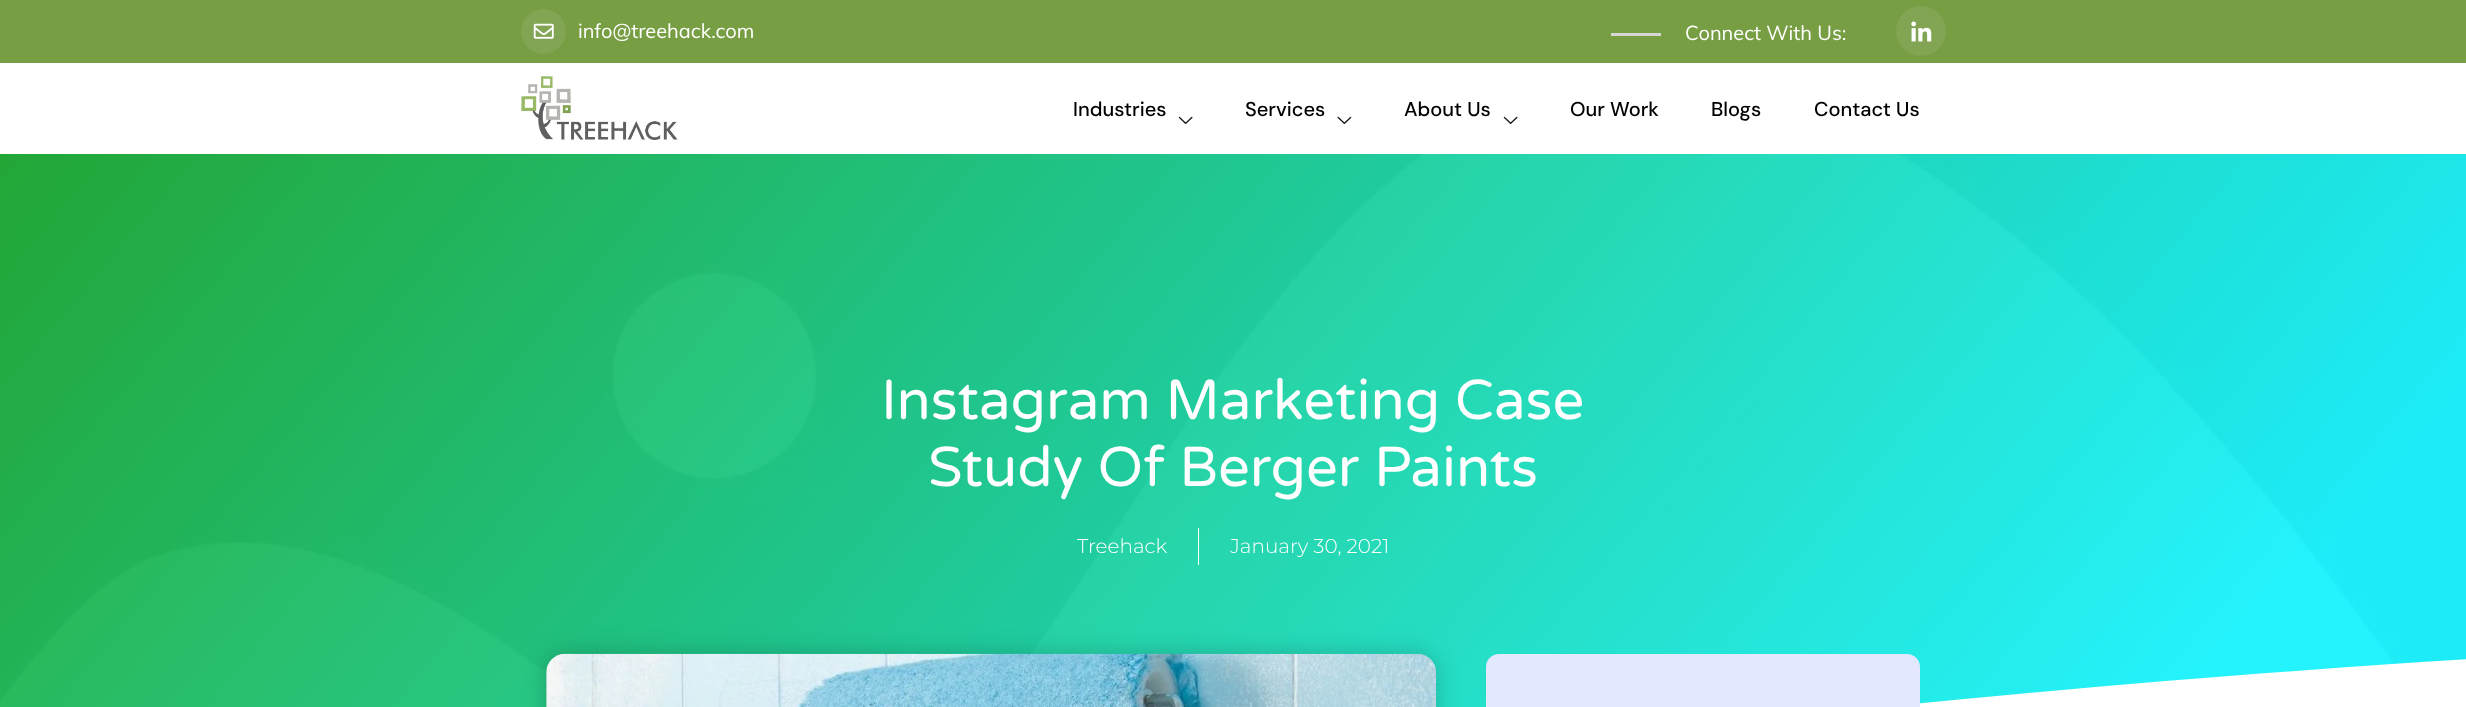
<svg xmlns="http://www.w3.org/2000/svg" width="2466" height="707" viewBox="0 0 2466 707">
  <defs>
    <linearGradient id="g1" gradientUnits="userSpaceOnUse" x1="356" y1="-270" x2="2111" y2="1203"><stop offset="0" stop-color="#07a11c"/><stop offset="0.89" stop-color="#00f2ff"/></linearGradient>
  </defs>
  <rect width="100%" height="100%" fill="#fff"/>
  <path d="M0 0h2466v63H0z" fill="#779e43"/>
  <circle cx="543.5" cy="31.5" r="22.5" fill="#81a553"/>
  <image x="533" y="23" width="21" height="16" href="img/1.png"/>
  <path d="M1611 33h50v3H1611z" fill="#d7d7d7"/>
  <circle cx="1921" cy="31" r="25" fill="#81a553"/>
  <image x="1911" y="21" width="21" height="21" href="img/2.png"/>
  <image x="521" y="76" width="157" height="64" href="img/3.png"/>
  <image x="1178" y="116" width="15" height="8" href="img/4.png"/>
  <image x="1337" y="116" width="15" height="8" href="img/5.png"/>
  <image x="1503" y="116" width="15" height="8" href="img/4.png"/>
  <path d="M0 154h2466v553H0z" fill="url(#g1)"/>
  <image x="0" y="154" width="2466" height="553" href="img/6.png"/>
  <path d="M1198 528h1v37H1198z" fill="#fff"/>
  <path d="M733 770C878 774 1063 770 1217 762C1368 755 1672 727 1862 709C2348 660 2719 642 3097 634C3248 631 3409 629 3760 638C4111 647 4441 676 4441 676V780H-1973V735C-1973 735-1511 686-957 689C-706 690-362 699-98 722C38 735 237 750 413 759C588 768 667 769 733 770Z" fill="#fff"/>
  <rect x="546" y="654" width="890" height="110" rx="19" fill="#00000033" filter="blur(12.5px)"/>
  <image x="546" y="653" width="891" height="54" href="img/7.png"/>
  <rect x="1486" y="654" width="434" height="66" rx="13" fill="#e3e8ff"/>
  <g font-family="Muli" font-size="20" fill="#fff">
    <text x="578" y="38">info@treehack.com</text>
    <text x="1685" y="40">Connect With Us:</text>
  </g>
  <g font-family="DM Sans" font-size="20" font-weight="500" fill="#000">
    <text x="1073" y="116">Industries</text>
    <text x="1245" y="116">Services</text>
    <text x="1404" y="116">About Us</text>
    <text x="1570" y="116">Our Work</text>
    <text x="1711" y="116">Blogs</text>
    <text x="1814" y="116">Contact Us</text>
  </g>
  <g font-family="Varela Round" font-size="56.25" fill="#fff">
    <text x="881" y="419">Instagram Marketing Case</text>
    <text x="928" y="486">Study Of Berger Paints</text>
  </g>
  <g font-family="Montserrat" font-size="20" font-weight="300" fill="#fff">
    <text x="1077" y="553">Treehack</text>
    <text x="1230" y="553">January 30, 2021</text>
  </g>
</svg>
